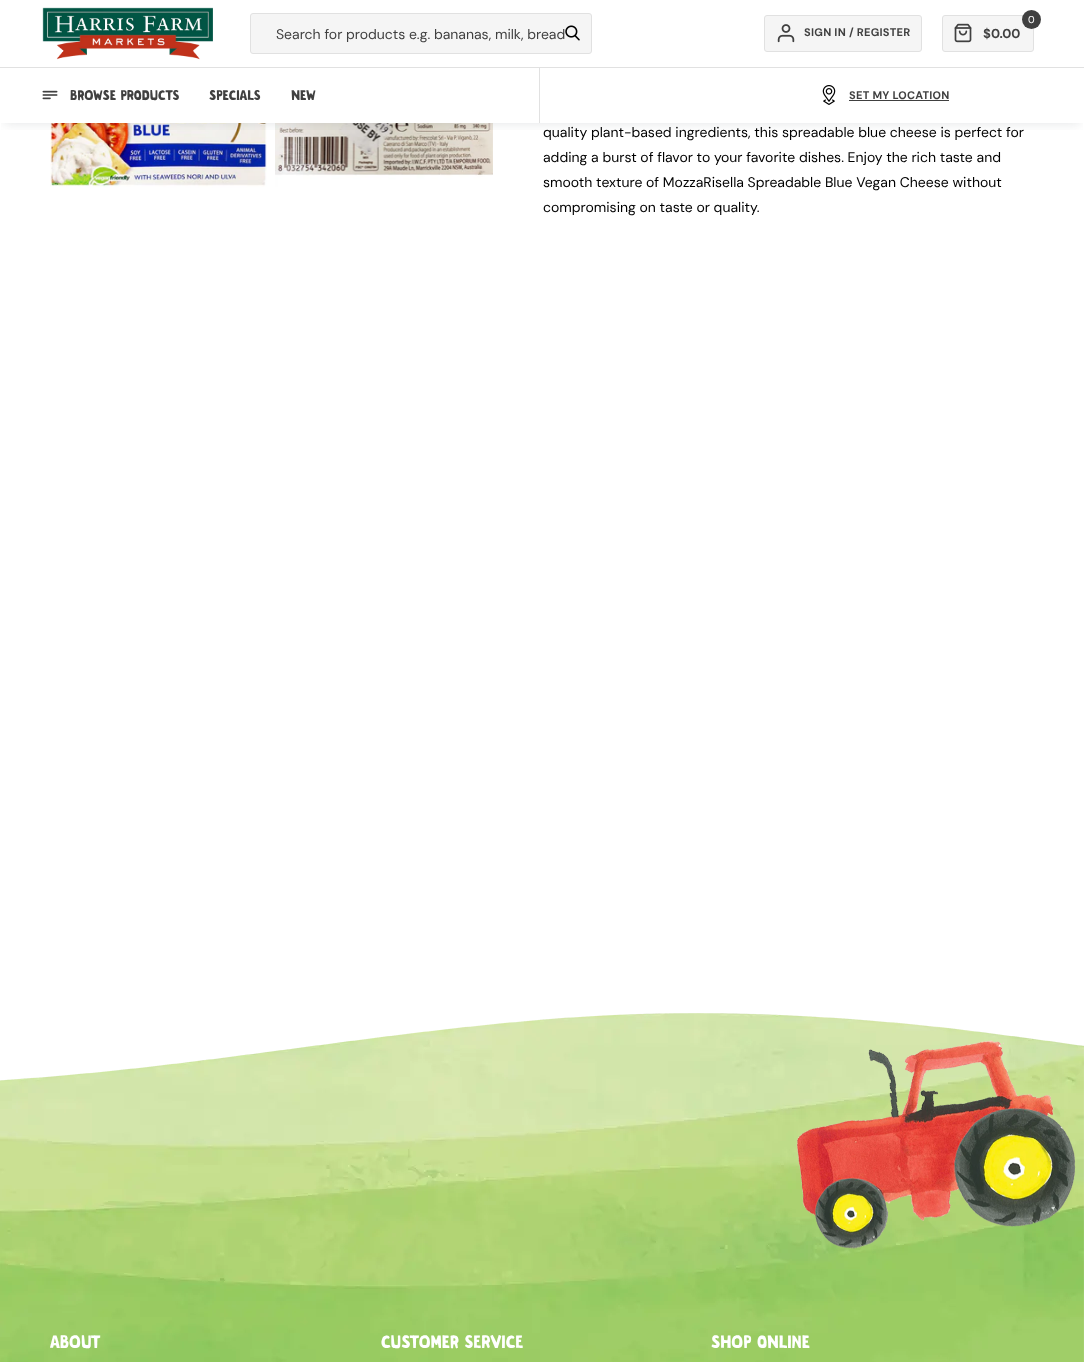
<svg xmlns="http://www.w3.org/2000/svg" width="1084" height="1362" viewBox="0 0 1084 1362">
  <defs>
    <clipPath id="clip1"><path d="M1 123h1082v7H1z"/></clipPath>
  </defs>
  <rect width="100%" height="100%" fill="#fff"/>
  <image x="50" y="123" width="217" height="97" href="img/7.png"/>
  <image x="275" y="123" width="218" height="97" href="img/8.png"/>
  <g clip-path="url(#clip1)">
    <path d="M4 8h1076v115H4z" fill="#3a474e26" filter="blur(6px)"/>
  </g>
  <path d="M0 67h1084v1H0z" fill="#e1e1e1"/>
  <image x="42" y="7" width="171" height="53" href="img/1.png"/>
  <rect x="250.5" y="13.5" width="341" height="40" rx="2.5" fill="#f5f5f5" stroke="#e1e1e1"/>
  <image x="565" y="25" width="15" height="16" href="img/2.png"/>
  <rect x="764.5" y="15.5" width="157" height="36" rx="2.5" fill="#f5f5f5" stroke="#e1e1e1"/>
  <image x="777" y="24" width="18" height="19" href="img/3.png"/>
  <rect x="942.5" y="15.5" width="91" height="36" rx="2.5" fill="#f5f5f5" stroke="#e1e1e1"/>
  <circle cx="1031.5" cy="19.5" r="9.5" fill="#404040"/>
  <image x="954" y="23" width="18" height="20" href="img/4.png"/>
  <image x="42" y="90" width="16" height="10" href="img/5.png"/>
  <path d="M539 68h1v55H539z" fill="#e1e1e1"/>
  <image x="822" y="85" width="14" height="20" href="img/6.png"/>
  <path d="M849 100h100v1H849z" fill="#404040"/>
  <image x="0" y="1013" width="1084" height="349" href="img/9.png"/>
  <image x="796" y="1040" width="280" height="209" href="img/10.png"/>
  <text x="276" y="39" font-family="DM Sans" font-size="14" fill="#404040">Search for products e.g. bananas, milk, bread</text>
  <text x="804" y="36" font-family="DM Sans" font-size="11" font-weight="bold" letter-spacing="0.25" fill="#404040">SIGN IN / REGISTER</text>
  <text x="1028" y="23" font-family="'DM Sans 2'" font-size="10" fill="#fff">0</text>
  <text x="983" y="38" font-family="'DM Sans 2'" font-size="13" font-weight="bold" fill="#404040">$0.00</text>
  <g font-family="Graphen" font-size="14" font-weight="bold" fill="#404040">
    <text x="70" y="100">BROWSE PRODUCTS</text>
    <text x="209" y="100">SPECIALS</text>
    <text x="291" y="100">NEW</text>
  </g>
  <text x="849" y="99" font-family="DM Sans" font-size="11" font-weight="bold" letter-spacing="0.25" fill="#404040">SET MY LOCATION</text>
  <g font-family="DM Sans" font-size="14" fill="#000">
    <text x="543" y="137">quality plant-based ingredients, this spreadable blue cheese is perfect for</text>
    <text x="543" y="162">adding a burst of flavor to your favorite dishes. Enjoy the rich taste and</text>
    <text x="543" y="187">smooth texture of MozzaRisella Spreadable Blue Vegan Cheese without</text>
    <text x="543" y="212">compromising on taste or quality.</text>
  </g>
  <g font-family="Graphen" font-size="18" font-weight="bold" fill="#fff">
    <text x="50" y="1348">ABOUT</text>
    <text x="381" y="1348">CUSTOMER SERVICE</text>
    <text x="711" y="1348">SHOP ONLINE</text>
  </g>
</svg>
